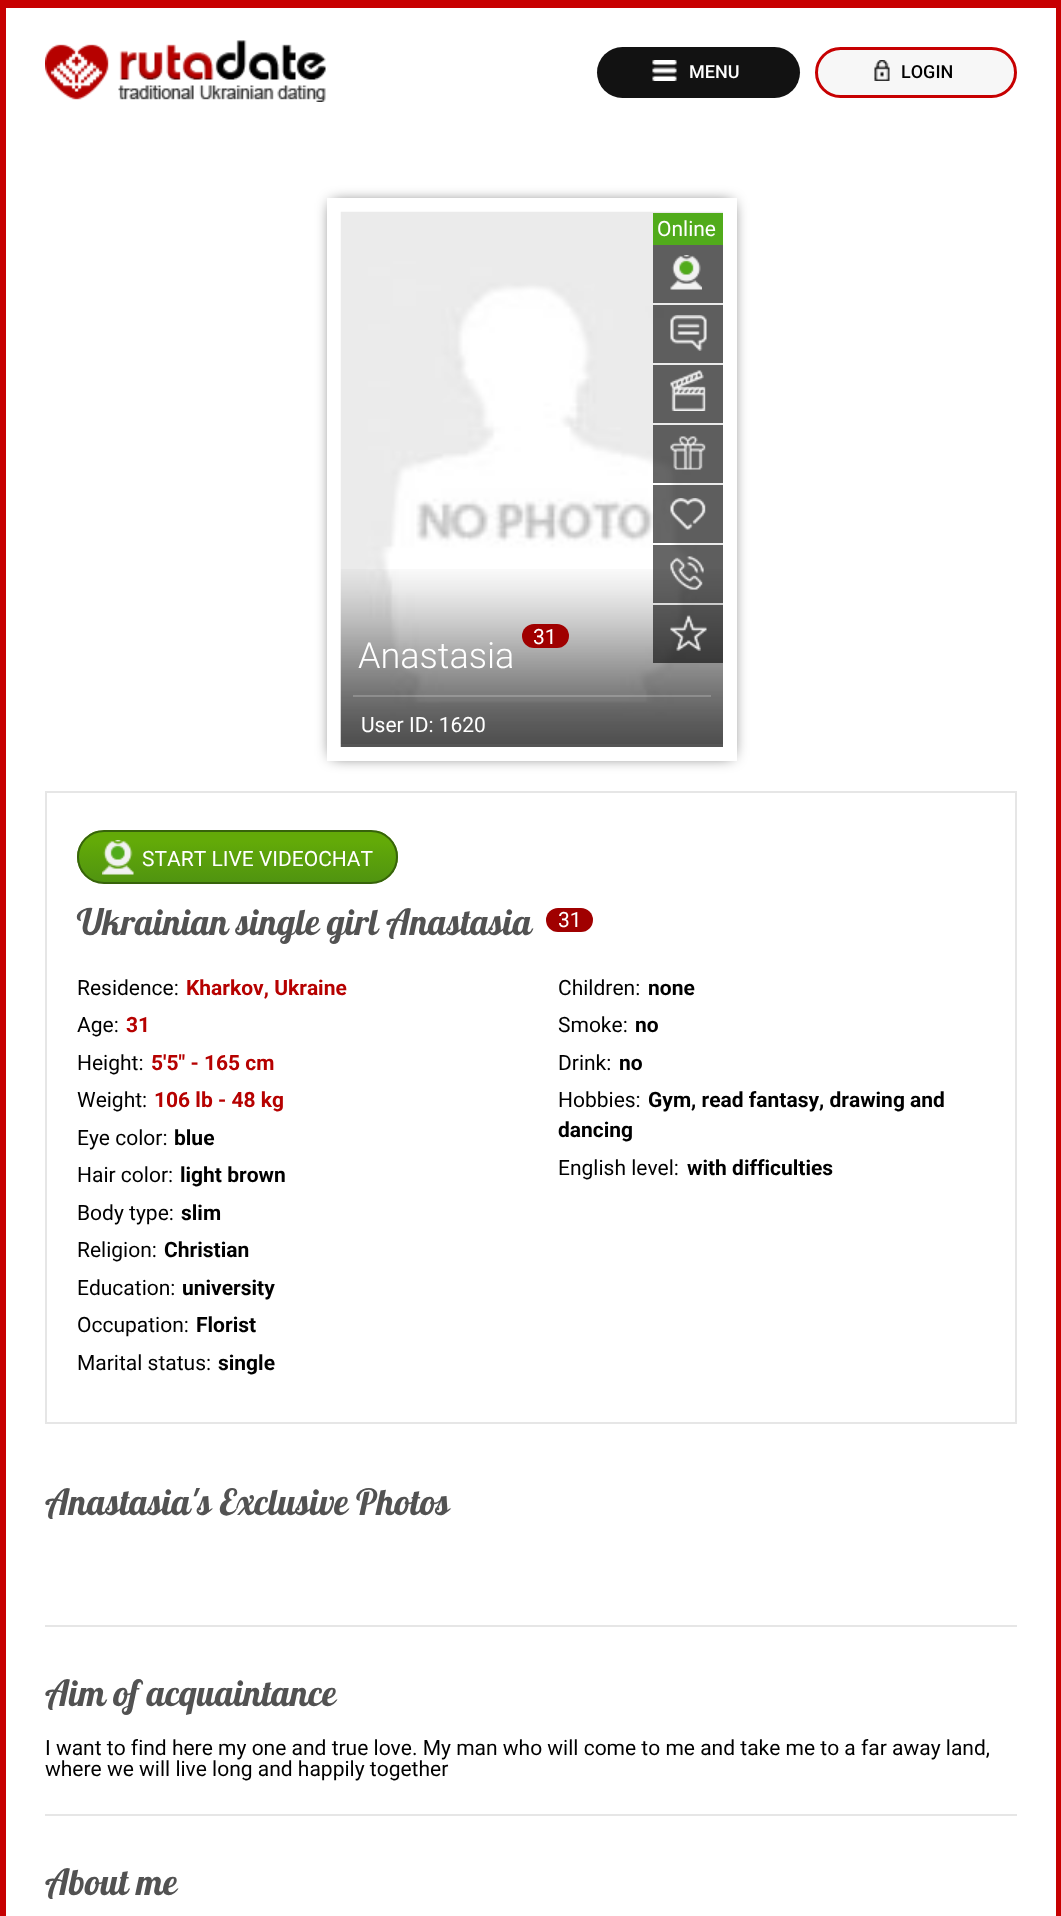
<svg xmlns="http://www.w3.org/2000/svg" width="1061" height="1916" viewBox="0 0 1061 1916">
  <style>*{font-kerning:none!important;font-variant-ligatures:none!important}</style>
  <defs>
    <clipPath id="clip1"><path d="M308 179H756V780H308ZM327 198H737V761H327Z" clip-rule="evenodd"/></clipPath>
    <clipPath id="clip2"><rect x="77" y="830" width="321" height="54" rx="27"/></clipPath>
    <linearGradient id="g1" gradientUnits="userSpaceOnUse" x1="237" y1="831" x2="237" y2="882"><stop offset="0.2" stop-color="#63aa08"/><stop offset="1" stop-color="#509410"/></linearGradient>
  </defs>
  <rect width="100%" height="100%" fill="#fff"/>
  <path d="M0 0h1061v8H0z" fill="#c70001"/>
  <path d="M1056 0h5v1916H1056z" fill="#c70001"/>
  <path d="M0 0h6v1916H0z" fill="#c70001"/>
  <image x="45" y="40" width="281" height="62" href="img/1.png"/>
  <rect x="597" y="47" width="203" height="51" rx="25.5" fill="#121212"/>
  <image x="652" y="60" width="25" height="21" href="img/2.png"/>
  <rect x="816.5" y="48.5" width="199" height="48" rx="24" fill="#f7f7f7" stroke="#c70001" stroke-width="3"/>
  <image x="874" y="60" width="16" height="21" href="img/3.png"/>
  <g clip-path="url(#clip1)">
    <path d="M332 203h400v553H332z" fill="#000000bf" filter="blur(7.5px)"/>
  </g>
  <path d="M334 205h396v549H334z" fill="none" stroke="#fff" stroke-width="14"/>
  <image x="340" y="211" width="383" height="533" href="img/4.png"/>
  <path d="M653 213h70v32H653z" fill="#51ab1b"/>
  <path d="M653 245h70v58H653z" fill="#5e5e5e"/>
  <image x="670" y="255" width="32" height="35" href="img/5.png"/>
  <path d="M653 305h70v58H653z" fill="#00000099"/>
  <image x="670" y="315" width="37" height="36" href="img/6.png"/>
  <path d="M653 365h70v58H653z" fill="#5e5e5e"/>
  <image x="670" y="370" width="36" height="41" href="img/7.png"/>
  <path d="M653 425h70v58H653z" fill="#00000099"/>
  <image x="670" y="436" width="36" height="34" href="img/8.png"/>
  <path d="M653 485h70v58H653z" fill="#00000099"/>
  <image x="670" y="498" width="36" height="32" href="img/9.png"/>
  <image x="340" y="569" width="383" height="178" href="img/12.png"/>
  <path d="M653 545h70v58H653z" fill="#00000099"/>
  <image x="670" y="556" width="34" height="34" href="img/10.png"/>
  <path d="M653 605h70v58H653z" fill="#00000099"/>
  <image x="670" y="615" width="37" height="36" href="img/11.png"/>
  <rect x="522" y="624" width="47" height="24" rx="12" fill="#a00000"/>
  <path d="M353 695h358v2H353z" fill="#ffffff33"/>
  <path d="M46 792h970v631H46z" fill="none" stroke="#e6e6e6" stroke-width="2"/>
  <g clip-path="url(#clip2)">
    <path d="M77 831h321v51H77z" fill="url(#g1)"/>
  </g>
  <rect x="78" y="831" width="319" height="52" rx="26" fill="none" stroke="#37630b" stroke-width="2"/>
  <image x="102" y="840" width="32" height="35" href="img/13.png"/>
  <rect x="546" y="908" width="47" height="24" rx="12" fill="#a00000"/>
  <path d="M45 1625h972v2H45z" fill="#e6e6e6"/>
  <path d="M45 1814h972v2H45z" fill="#e6e6e6"/>
  <text x="689" y="78" font-family="Roboto" font-size="18" font-weight="500" fill="#fff">MENU</text>
  <text x="901" y="78" font-family="Roboto" font-size="18" font-weight="500" fill="#000">LOGIN</text>
  <g font-family="Roboto" font-size="21" fill="#fff">
    <text x="657" y="236">Online</text>
    <text x="533" y="644">31</text>
  </g>
  <text x="358" y="668" font-family="Roboto" font-size="36" font-weight="300" fill="#fff">Anastasia</text>
  <g font-family="Roboto" font-size="21" fill="#fff">
    <text x="361" y="732">User ID: 1620</text>
    <text x="142" y="866">START LIVE VIDEOCHAT</text>
  </g>
  <text x="77" y="935" font-family="Lobster" font-size="36" fill="#525252">Ukrainian single girl Anastasia</text>
  <text x="558" y="927" font-family="Roboto" font-size="21" fill="#fff">31</text>
  <text x="77" y="995" font-family="Roboto" font-size="21" fill="#000">Residence:</text>
  <text x="186" y="995" font-family="Roboto" font-size="21" font-weight="bold" fill="#b60100">Kharkov, Ukraine</text>
  <text x="77" y="1032" font-family="Roboto" font-size="21" fill="#000">Age:</text>
  <text x="126" y="1032" font-family="Roboto" font-size="21" font-weight="bold" fill="#b60100">31</text>
  <text x="77" y="1070" font-family="Roboto" font-size="21" fill="#000">Height:</text>
  <text x="151" y="1070" font-family="Roboto" font-size="21" font-weight="bold" fill="#b60100">5'5" - 165 cm</text>
  <text x="77" y="1107" font-family="Roboto" font-size="21" fill="#000">Weight:</text>
  <text x="154" y="1107" font-family="Roboto" font-size="21" font-weight="bold" fill="#b60100">106 lb - 48 kg</text>
  <text x="77" y="1145" font-family="Roboto" font-size="21" fill="#000">Eye color:</text>
  <text x="174" y="1145" font-family="Roboto" font-size="21" font-weight="bold" fill="#000">blue</text>
  <text x="77" y="1182" font-family="Roboto" font-size="21" fill="#000">Hair color:</text>
  <text x="180" y="1182" font-family="Roboto" font-size="21" font-weight="bold" fill="#000">light brown</text>
  <text x="77" y="1220" font-family="Roboto" font-size="21" fill="#000">Body type:</text>
  <text x="181" y="1220" font-family="Roboto" font-size="21" font-weight="bold" fill="#000">slim</text>
  <text x="77" y="1257" font-family="Roboto" font-size="21" fill="#000">Religion:</text>
  <text x="164" y="1257" font-family="Roboto" font-size="21" font-weight="bold" fill="#000">Christian</text>
  <text x="77" y="1295" font-family="Roboto" font-size="21" fill="#000">Education:</text>
  <text x="182" y="1295" font-family="Roboto" font-size="21" font-weight="bold" fill="#000">university</text>
  <text x="77" y="1332" font-family="Roboto" font-size="21" fill="#000">Occupation:</text>
  <text x="196" y="1332" font-family="Roboto" font-size="21" font-weight="bold" fill="#000">Florist</text>
  <text x="77" y="1370" font-family="Roboto" font-size="21" fill="#000">Marital status:</text>
  <text x="218" y="1370" font-family="Roboto" font-size="21" font-weight="bold" fill="#000">single</text>
  <text x="558" y="995" font-family="Roboto" font-size="21" fill="#000">Children:</text>
  <text x="648" y="995" font-family="Roboto" font-size="21" font-weight="bold" fill="#000">none</text>
  <text x="558" y="1032" font-family="Roboto" font-size="21" fill="#000">Smoke:</text>
  <text x="635" y="1032" font-family="Roboto" font-size="21" font-weight="bold" fill="#000">no</text>
  <text x="558" y="1070" font-family="Roboto" font-size="21" fill="#000">Drink:</text>
  <g font-family="Roboto" font-size="21" font-weight="bold" fill="#000">
    <text x="619" y="1070">no</text>
    <text x="648" y="1107">Gym, read fantasy, drawing and</text>
    <text x="558" y="1137">dancing</text>
  </g>
  <g font-family="Roboto" font-size="21" fill="#000">
    <text x="558" y="1107">Hobbies:</text>
    <text x="558" y="1175">English level:</text>
  </g>
  <text x="687" y="1175" font-family="Roboto" font-size="21" font-weight="bold" fill="#000">with difficulties</text>
  <g font-family="Lobster" font-size="36" fill="#525252">
    <text x="45" y="1515">Anastasia's Exclusive</text>
    <text x="356" y="1515">Photos</text>
    <text x="45" y="1706">Aim of acquaintance</text>
  </g>
  <g font-family="Roboto" font-size="21" fill="#000">
    <text x="45" y="1755">I want to find here my one and true love. My man who will come to me and take me to a far away land,</text>
    <text x="45" y="1776">where we will live long and happily together</text>
  </g>
  <text x="45" y="1895" font-family="Lobster" font-size="36" fill="#525252">About me</text>
</svg>
